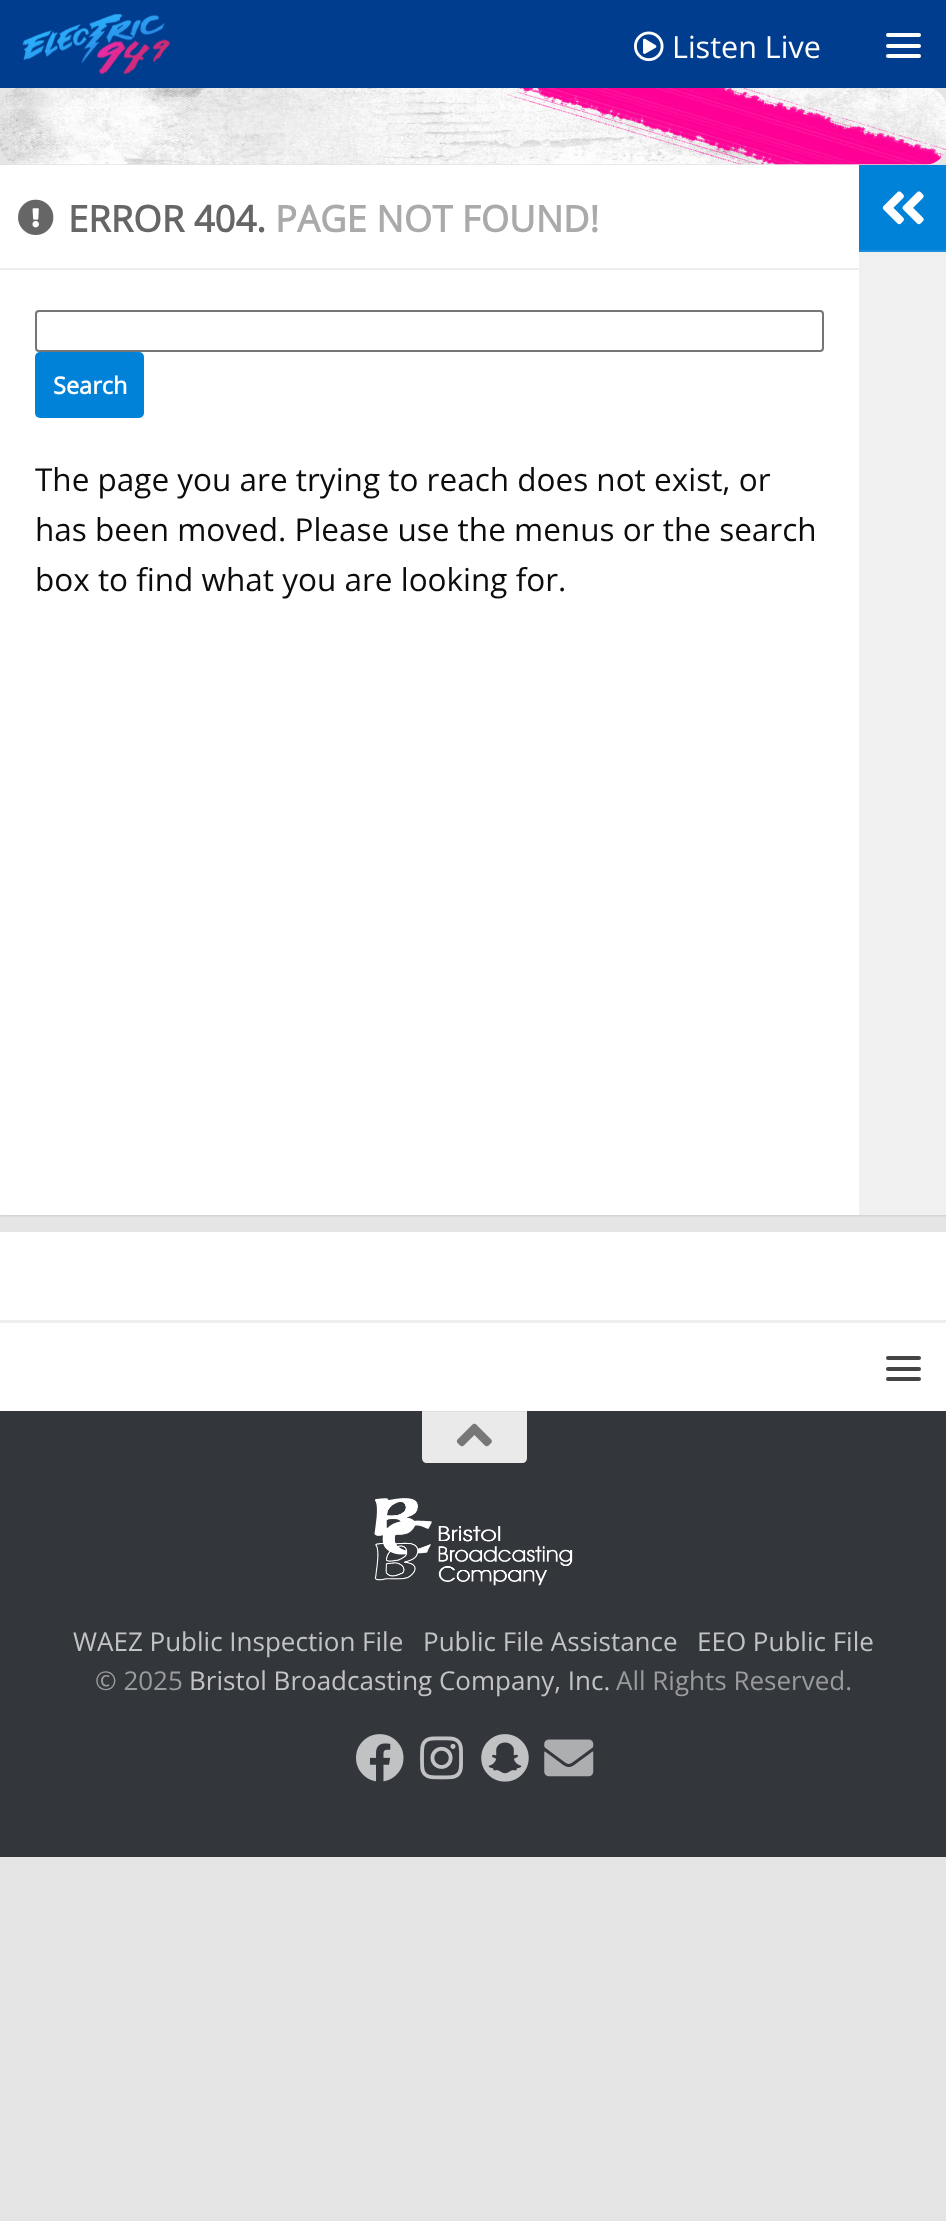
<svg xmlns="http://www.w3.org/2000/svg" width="946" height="2221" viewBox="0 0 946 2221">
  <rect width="100%" height="100%" fill="#e5e5e5"/>
  <path d="M0 0h946v88H0z" fill="#003d8e"/>
  <image x="22" y="14" width="148" height="60" href="img/1.png"/>
  <image x="634" y="31" width="30" height="31" href="img/2.png"/>
  <rect x="886" y="33" width="35" height="4" rx="2" fill="#fff"/>
  <rect x="886" y="44" width="35" height="4" rx="2" fill="#fff"/>
  <rect x="886" y="54" width="35" height="4" rx="2" fill="#fff"/>
  <path d="M0 166h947v1050H0z" fill="#0000001a" filter="blur(1px)"/>
  <image x="0" y="88" width="946" height="77" href="img/3.png"/>
  <path d="M0 165h859v1050H0z" fill="#fff"/>
  <path d="M0 268h859v2H0z" fill="#eee"/>
  <image x="18" y="199" width="36" height="36" href="img/4.png"/>
  <rect x="36" y="311" width="787" height="40" rx="3" fill="none" stroke="#767676" stroke-width="2"/>
  <rect x="35" y="352" width="109" height="66" rx="5" fill="#0082d8"/>
  <path d="M859 165h87v85H859z" fill="#0082d8"/>
  <path d="M859 250h87v2H859z" fill="#1a8fdc"/>
  <image x="882" y="191" width="42" height="34" href="img/5.png"/>
  <path d="M859 252h87v963H859z" fill="#f0f0f0"/>
  <path d="M0 1232h946v88H0z" fill="#fff"/>
  <path d="M0 1320h946v3H0z" fill="#eee"/>
  <path d="M0 1323h946v88H0z" fill="#fff"/>
  <rect x="886" y="1356" width="35" height="4" rx="2" fill="#444"/>
  <rect x="886" y="1367" width="35" height="4" rx="2" fill="#444"/>
  <rect x="886" y="1377" width="35" height="4" rx="2" fill="#444"/>
  <path d="M0 1411h946v446H0z" fill="#33363b"/>
  <path d="M422 1411H527V1458C527 1461 525 1463 522 1463H427C424 1463 422 1461 422 1458Z" fill="#eaeaea"/>
  <path d="M422 1411h105v1H422z" fill="#dedede"/>
  <image x="456" y="1423" width="36" height="24" href="img/6.png"/>
  <image x="374" y="1498" width="199" height="88" href="img/7.png"/>
  <image x="356" y="1734" width="48" height="48" href="img/8.png"/>
  <image x="420" y="1736" width="43" height="44" href="img/9.png"/>
  <image x="481" y="1734" width="48" height="48" href="img/10.png"/>
  <image x="544" y="1739" width="50" height="38" href="img/11.png"/>
  <text x="672" y="58" font-family="Open Sans" font-size="30.5" fill="#fff">Listen Live</text>
  <text x="68" y="232" font-family="Open Sans" font-size="36.5" font-weight="bold" fill="#666">ERROR 404.</text>
  <text x="275" y="232" font-family="Open Sans" font-size="36.5" font-weight="bold" fill="#aaa">PAGE NOT FOUND!</text>
  <text x="53" y="394" font-family="Open Sans" font-size="23.5" font-weight="bold" fill="#fff">Search</text>
  <g font-family="Open Sans" font-size="31.5" fill="#0c0c0c">
    <text x="35" y="491">The page you are trying to reach does not exist, or</text>
    <text x="35" y="541">has been moved. Please use the menus or the search</text>
    <text x="35" y="591">box to find what you are looking for.</text>
  </g>
  <g font-family="Open Sans" font-size="26" fill="#c2c3c4">
    <text x="73" y="1651">WAEZ Public Inspection File</text>
    <text x="423" y="1651">Public File Assistance</text>
    <text x="697" y="1651">EEO Public File</text>
  </g>
  <text x="95" y="1690" font-family="Open Sans" font-size="26" fill="#999b9d">© 2025</text>
  <text x="189" y="1690" font-family="Open Sans" font-size="26" fill="#c2c3c4">Bristol Broadcasting Company, Inc.</text>
  <text x="616" y="1690" font-family="Open Sans" font-size="26" fill="#999b9d">All Rights Reserved.</text>
</svg>
